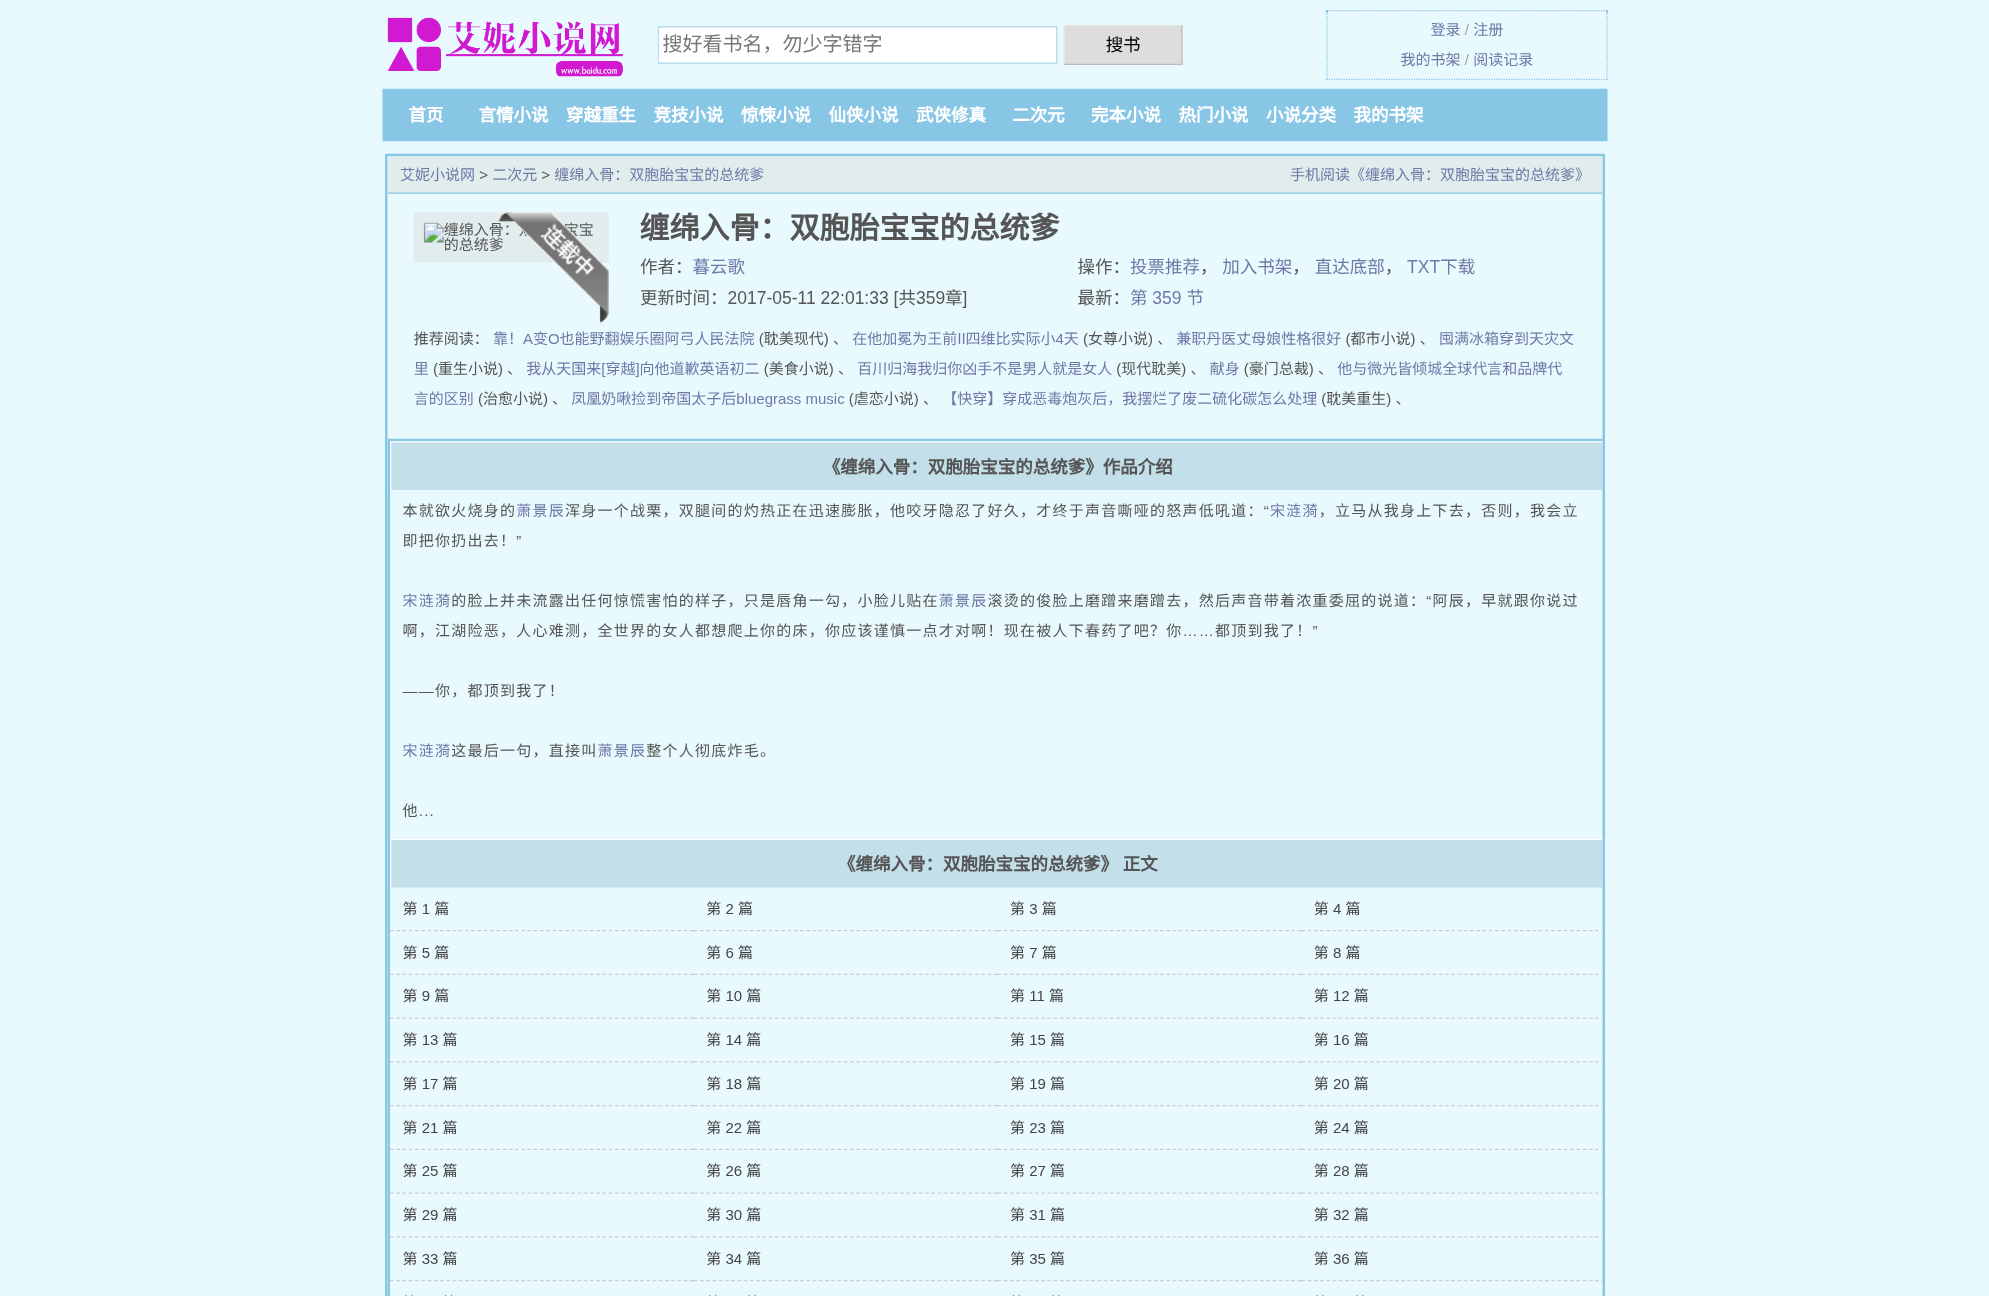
<svg xmlns="http://www.w3.org/2000/svg" width="1989" height="1296" viewBox="0 0 1989 1296">
  <rect width="100%" height="100%" fill="#fff"/>
  <image x="0" y="0" width="1989" height="1296" href="img/1.png"/>
</svg>
